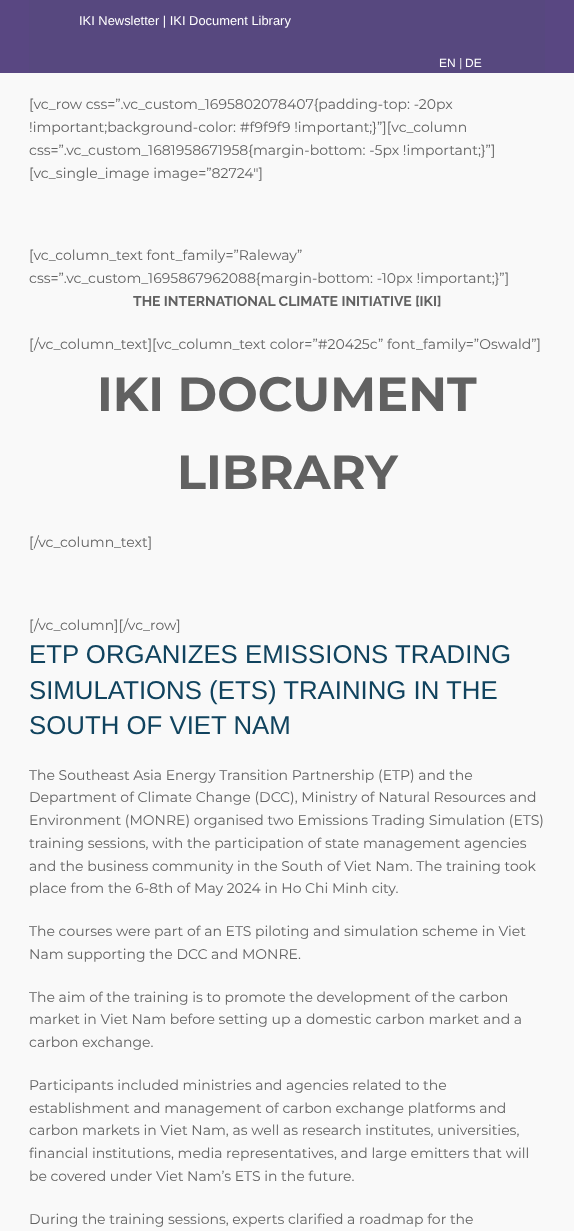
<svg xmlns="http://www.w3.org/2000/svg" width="574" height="1231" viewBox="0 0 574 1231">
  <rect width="100%" height="100%" fill="#f9f9f9"/>
  <path d="M0 0h574v73H0z" fill="#594782"/>
  <path d="M29 0h516v73H29z" fill="#57487f"/>
  <text x="79" y="25" font-family="Liberation Sans" font-size="12.9" fill="#fff">IKI Newsletter | IKI Document Library</text>
  <text x="439" y="67" font-family="Liberation Sans" font-size="12" fill="#fff">EN</text>
  <text x="459" y="67" font-family="Montserrat" font-size="12" fill="#fff">|</text>
  <text x="465" y="67" font-family="Liberation Sans" font-size="12" fill="#fff">DE</text>
  <g font-family="Montserrat" font-size="14" fill="#616161">
    <text x="29" y="109">[vc_row css=”.vc_custom_1695802078407{padding-top: -20px</text>
    <text x="29" y="132">!important;background-color: #f9f9f9 !important;}”][vc_column</text>
    <text x="29" y="155">css=”.vc_custom_1681958671958{margin-bottom: -5px !important;}”]</text>
    <text x="29" y="178">[vc_single_image image=”82724″]</text>
    <text x="29" y="260">[vc_column_text font_family=”Raleway”</text>
    <text x="29" y="283">css=”.vc_custom_1695867962088{margin-bottom: -10px !important;}”]</text>
  </g>
  <text x="133" y="306" font-family="Raleway" font-size="14" font-weight="bold" fill="#616161">THE INTERNATIONAL CLIMATE INITIATIVE [IKI]</text>
  <text x="29" y="349" font-family="Montserrat" font-size="14" fill="#616161">[/vc_column_text][vc_column_text color=”#20425c” font_family=”Oswald”]</text>
  <g font-family="Montserrat" font-size="48" font-weight="bold" fill="#616161">
    <text x="97" y="411">IKI DOCUMENT</text>
    <text x="177" y="489">LIBRARY</text>
  </g>
  <g font-family="Montserrat" font-size="14" fill="#616161">
    <text x="29" y="547">[/vc_column_text]</text>
    <text x="29" y="630">[/vc_column][/vc_row]</text>
  </g>
  <g font-family="Liberation Sans" font-size="25.8" fill="#10435e">
    <text x="29" y="663">ETP ORGANIZES EMISSIONS TRADING</text>
    <text x="29" y="699">SIMULATIONS (ETS) TRAINING IN THE</text>
    <text x="29" y="734">SOUTH OF VIET NAM</text>
  </g>
  <g font-family="Montserrat" font-size="14" fill="#616161">
    <text x="29" y="780">The Southeast Asia Energy Transition Partnership (ETP) and the</text>
    <text x="29" y="802">Department of Climate Change (DCC), Ministry of Natural Resources and</text>
    <text x="29" y="825">Environment (MONRE) organised two Emissions Trading Simulation (ETS)</text>
    <text x="29" y="848">training sessions, with the participation of state management agencies</text>
    <text x="29" y="871">and the business community in the South of Viet Nam. The training took</text>
    <text x="29" y="893">place from the 6-8th of May 2024 in Ho Chi Minh city.</text>
    <text x="29" y="936">The courses were part of an ETS piloting and simulation scheme in Viet</text>
    <text x="29" y="959">Nam supporting the DCC and MONRE.</text>
    <text x="29" y="1002">The aim of the training is to promote the development of the carbon</text>
    <text x="29" y="1024">market in Viet Nam before setting up a domestic carbon market and a</text>
    <text x="29" y="1047">carbon exchange.</text>
    <text x="29" y="1090">Participants included ministries and agencies related to the</text>
    <text x="29" y="1113">establishment and management of carbon exchange platforms and</text>
    <text x="29" y="1135">carbon markets in Viet Nam, as well as research institutes, universities,</text>
    <text x="29" y="1158">financial institutions, media representatives, and large emitters that will</text>
    <text x="29" y="1181">be covered under Viet Nam’s ETS in the future.</text>
    <text x="29" y="1224">During the training sessions, experts clarified a roadmap for the</text>
  </g>
</svg>
